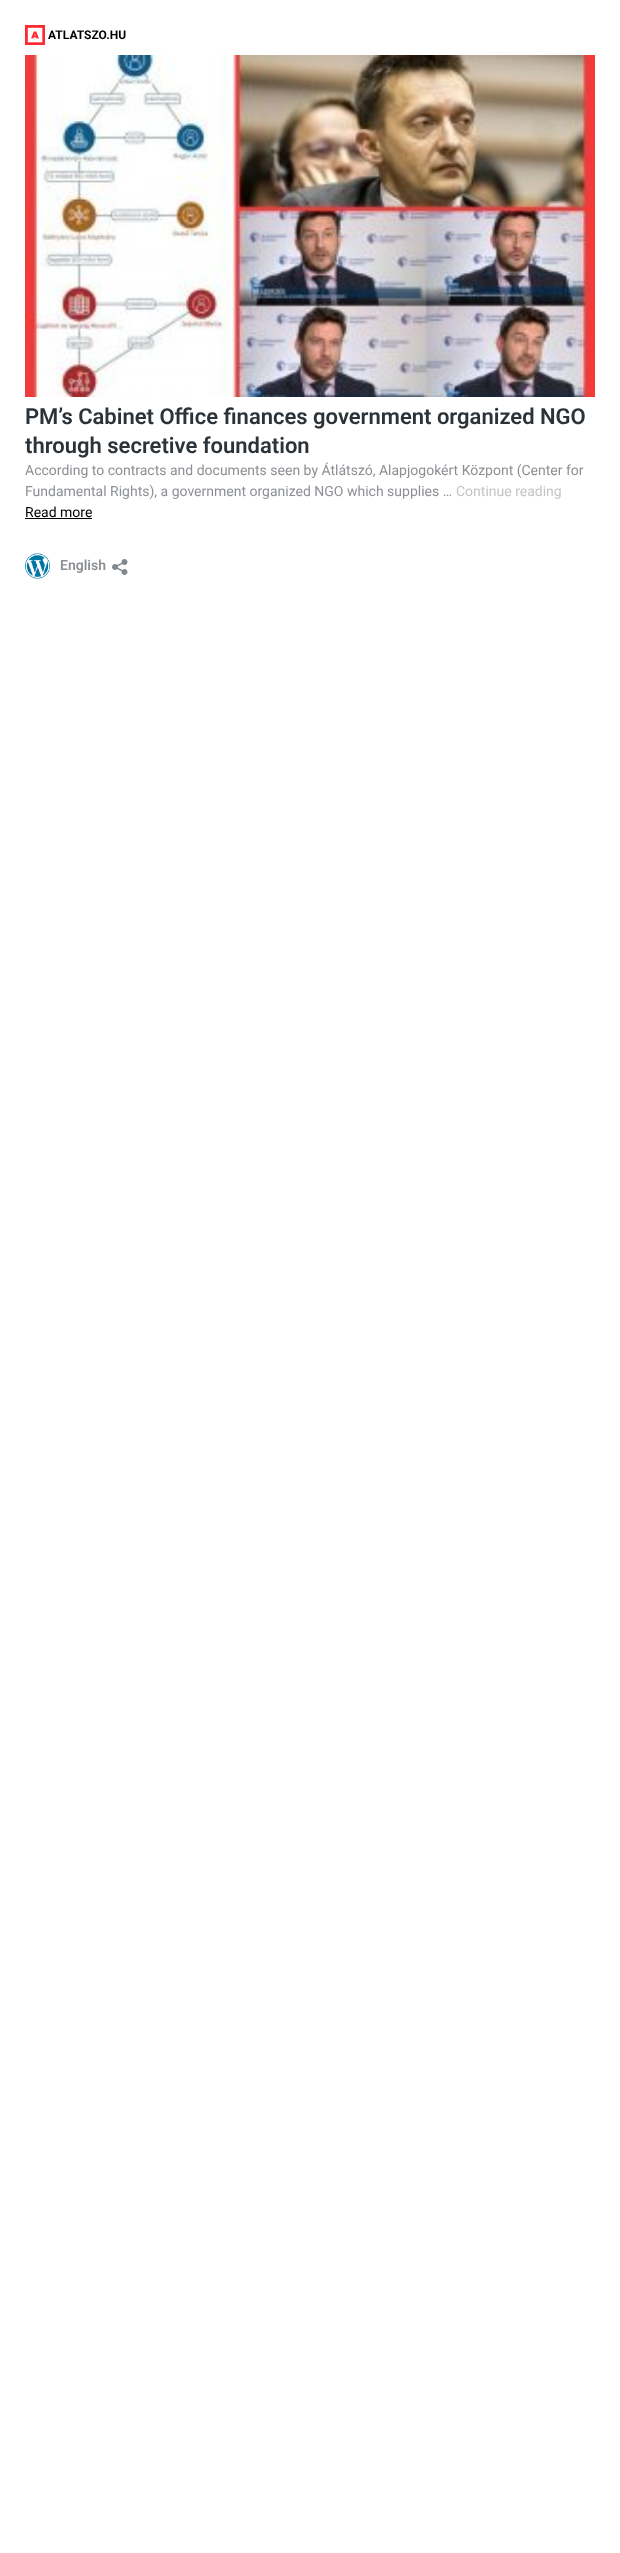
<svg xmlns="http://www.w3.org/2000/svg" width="620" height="2553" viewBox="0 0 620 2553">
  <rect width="100%" height="100%" fill="#fff"/>
  <image x="25" y="25" width="20" height="20" href="img/1.png"/>
  <image x="25" y="55" width="570" height="342" href="img/2.png"/>
  <path d="M25 518h67v1H25z" fill="#000"/>
  <image x="25" y="553" width="25" height="26" href="img/3.png"/>
  <image x="112" y="559" width="16" height="16" href="img/4.png"/>
  <text x="48" y="39" font-family="Roboto" font-size="12" font-weight="bold" fill="#000">ATLATSZO.HU</text>
  <g font-family="Roboto" font-size="22" font-weight="600" fill="#2c3338">
    <text x="25" y="424">PM’s Cabinet Office finances government organized NGO</text>
    <text x="25" y="453">through secretive foundation</text>
  </g>
  <g font-family="Roboto" font-size="14" fill="#8c8f94">
    <text x="25" y="475">According to contracts and documents seen by Átlátszó, Alapjogokért Központ (Center for</text>
    <text x="25" y="496">Fundamental Rights), a government organized NGO which supplies …</text>
  </g>
  <text x="456" y="496" font-family="Roboto" font-size="14" fill="#c3c4c7">Continue reading</text>
  <text x="25" y="517" font-family="Roboto" font-size="14" fill="#000">Read more</text>
  <text x="60" y="570" font-family="Roboto" font-size="14" font-weight="600" fill="#8c8f94">English</text>
</svg>
